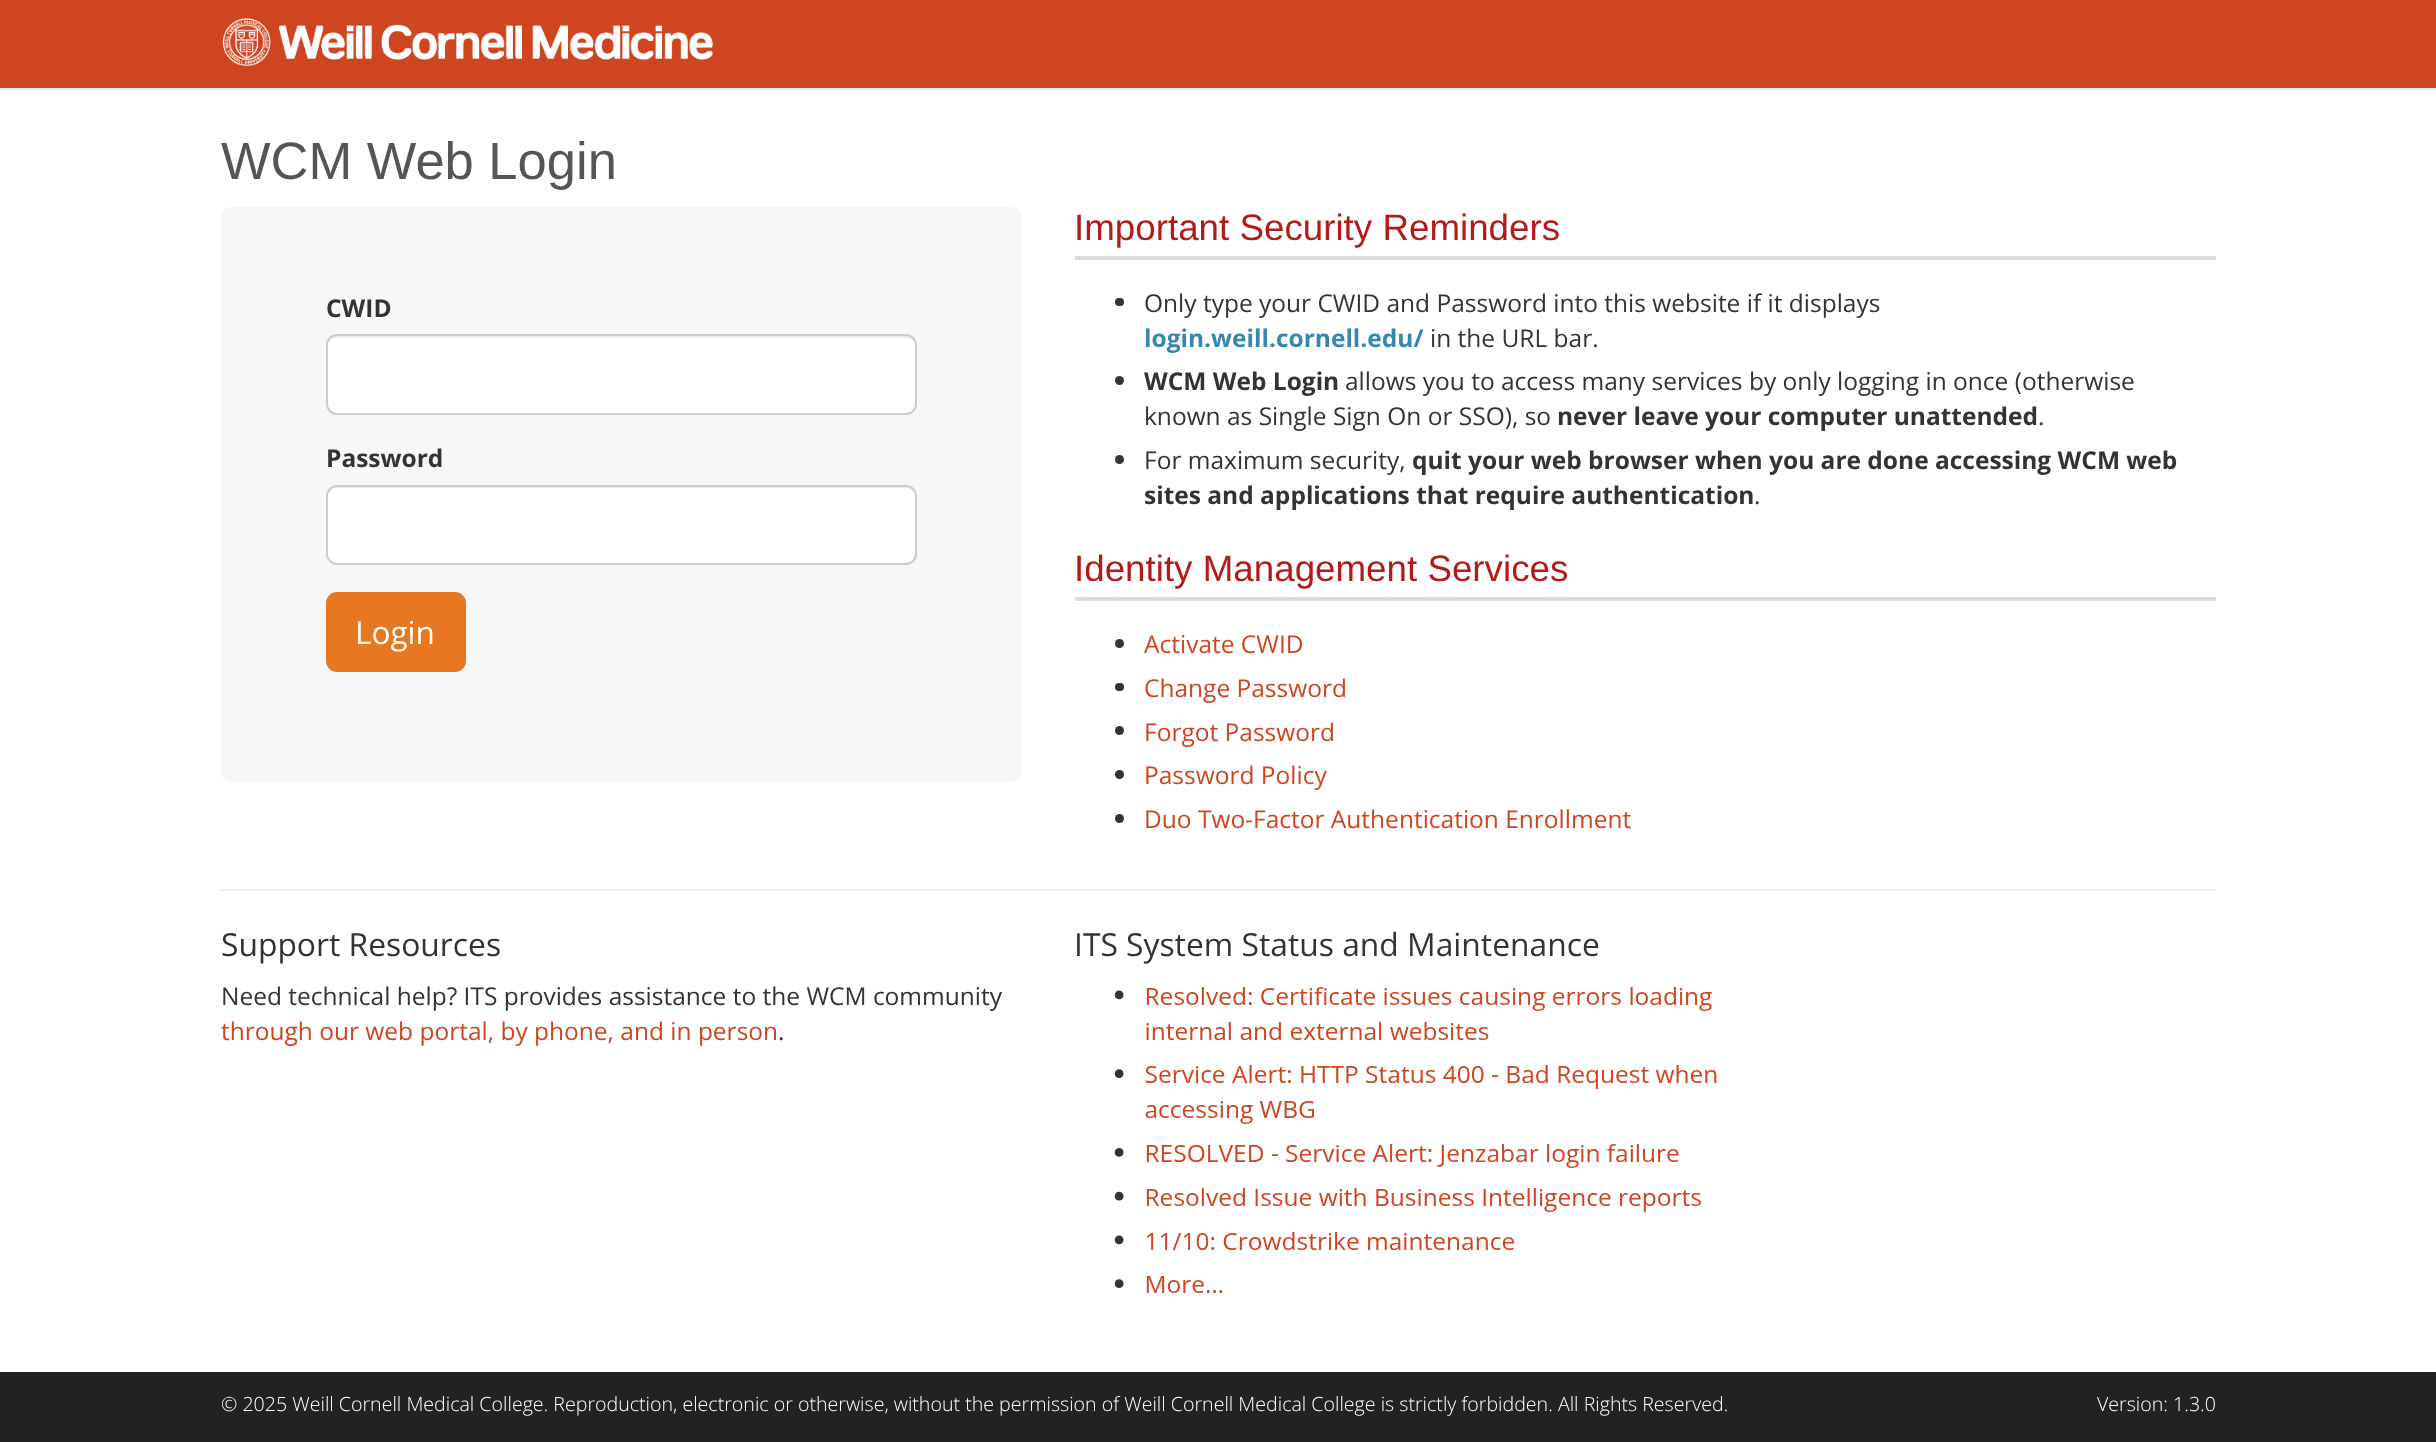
<svg xmlns="http://www.w3.org/2000/svg" width="2436" height="1442" viewBox="0 0 2436 1442">
  <rect width="100%" height="100%" fill="#fff"/>
  <path d="M0 0h2436v88H0z" fill="#cf4520"/>
  <path d="M0 88h2436v2H0z" fill="#e7e7e7"/>
  <image x="222" y="18" width="491" height="49" href="img/1.png"/>
  <rect x="221" y="207" width="801" height="575" rx="11" fill="#f7f7f7"/>
  <rect x="326" y="334" width="591" height="81" rx="11" fill="#fff"/>
  <path d="M336 338H906C911 338 915 342 915 346V345C915 340 911 336 906 336H336C331 336 327 340 327 345V346C327 342 331 338 336 338Z" fill="#ececec"/>
  <rect x="327" y="335" width="589" height="79" rx="10" fill="none" stroke="#ccc" stroke-width="2"/>
  <rect x="326" y="485" width="591" height="80" rx="11" fill="#fff"/>
  <path d="M336 488H906C911 488 915 492 915 497V496C915 491 911 487 906 487H336C331 487 327 491 327 496V497C327 492 331 488 336 488Z" fill="#ececec"/>
  <rect x="327" y="486" width="589" height="78" rx="10" fill="none" stroke="#ccc" stroke-width="2"/>
  <rect x="326" y="592" width="140" height="80" rx="11" fill="#e87722"/>
  <path d="M1075 256h1141v4H1075z" fill="#ddd"/>
  <rect x="1115" y="298" width="9" height="8" rx="4" fill="#333"/>
  <circle cx="1119.5" cy="380.5" r="4.5" fill="#333"/>
  <circle cx="1119.5" cy="459.5" r="4.5" fill="#333"/>
  <path d="M1075 597h1141v4H1075z" fill="#ddd"/>
  <circle cx="1119.5" cy="643.5" r="4.5" fill="#333"/>
  <rect x="1115" y="683" width="9" height="8" rx="4" fill="#333"/>
  <circle cx="1119.5" cy="730.5" r="4.5" fill="#333"/>
  <circle cx="1119.5" cy="774.5" r="4.5" fill="#333"/>
  <circle cx="1119.5" cy="818.5" r="4.5" fill="#333"/>
  <path d="M221 889h1995v2H221z" fill="#eee"/>
  <image x="1114" y="987" width="603" height="306" href="img/2.png"/>
  <path d="M0 1372h2436v70H0z" fill="#222"/>
  <text x="221" y="179" font-family="Liberation Sans" font-size="52.5" fill="#555">WCM Web Login</text>
  <g font-family="Open Sans" font-size="24.5" font-weight="bold" fill="#333">
    <text x="326" y="317">CWID</text>
    <text x="326" y="467">Password</text>
  </g>
  <text x="355" y="644" font-family="Open Sans" font-size="31.5" fill="#fff">Login</text>
  <text x="1074" y="240" font-family="Liberation Sans" font-size="36.75" fill="#b31b1b">Important Security Reminders</text>
  <text x="1144" y="312" font-family="Open Sans" font-size="24.5" fill="#333">Only type your CWID and Password into this website if it displays</text>
  <text x="1144" y="347" font-family="Open Sans" font-size="24.5" font-weight="bold" fill="#3787b0">login.weill.cornell.edu/</text>
  <text x="1430" y="347" font-family="Open Sans" font-size="24.5" fill="#333">in the URL bar.</text>
  <text x="1144" y="390" font-family="Open Sans" font-size="24.5" font-weight="bold" fill="#333">WCM Web Login</text>
  <g font-family="Open Sans" font-size="24.5" fill="#333">
    <text x="1345" y="390">allows you to access many services by only logging in once (otherwise</text>
    <text x="1144" y="425">known as Single Sign On or SSO), so</text>
  </g>
  <text x="1557" y="425" font-family="Open Sans" font-size="24.5" font-weight="bold" fill="#333">never leave your computer unattended</text>
  <g font-family="Open Sans" font-size="24.5" fill="#333">
    <text x="2038" y="425">.</text>
    <text x="1144" y="469">For maximum security,</text>
  </g>
  <g font-family="Open Sans" font-size="24.5" font-weight="bold" fill="#333">
    <text x="1412" y="469">quit your web browser when you are done accessing WCM web</text>
    <text x="1144" y="504">sites and applications that require authentication</text>
  </g>
  <text x="1754" y="504" font-family="Open Sans" font-size="24.5" fill="#333">.</text>
  <text x="1074" y="581" font-family="Liberation Sans" font-size="36.75" fill="#b31b1b">Identity Management Services</text>
  <g font-family="Open Sans" font-size="24.5" fill="#cf4520">
    <text x="1144" y="653">Activate CWID</text>
    <text x="1144" y="697">Change Password</text>
    <text x="1144" y="741">Forgot Password</text>
    <text x="1144" y="784">Password Policy</text>
    <text x="1144" y="828">Duo Two-Factor Authentication Enrollment</text>
  </g>
  <text x="221" y="956" font-family="Open Sans" font-size="31.8" fill="#333">Support Resources</text>
  <text x="221" y="1005" font-family="Open Sans" font-size="24.5" fill="#333">Need technical help? ITS provides assistance to the WCM community</text>
  <text x="221" y="1040" font-family="Open Sans" font-size="24.5" fill="#cf4520">through our web portal, by phone, and in person</text>
  <text x="778" y="1040" font-family="Open Sans" font-size="24.5" fill="#333">.</text>
  <text x="1074" y="956" font-family="Open Sans" font-size="31.8" fill="#333">ITS System Status and Maintenance</text>
  <g font-family="Open Sans" font-size="19.6" font-weight="300" fill="#fff">
    <text x="221" y="1411">© 2025 Weill Cornell Medical College. Reproduction, electronic or otherwise, without the permission of Weill Cornell Medical College is strictly forbidden. All Rights Reserved.</text>
    <text x="2097" y="1411">Version: 1.3.0</text>
  </g>
</svg>
